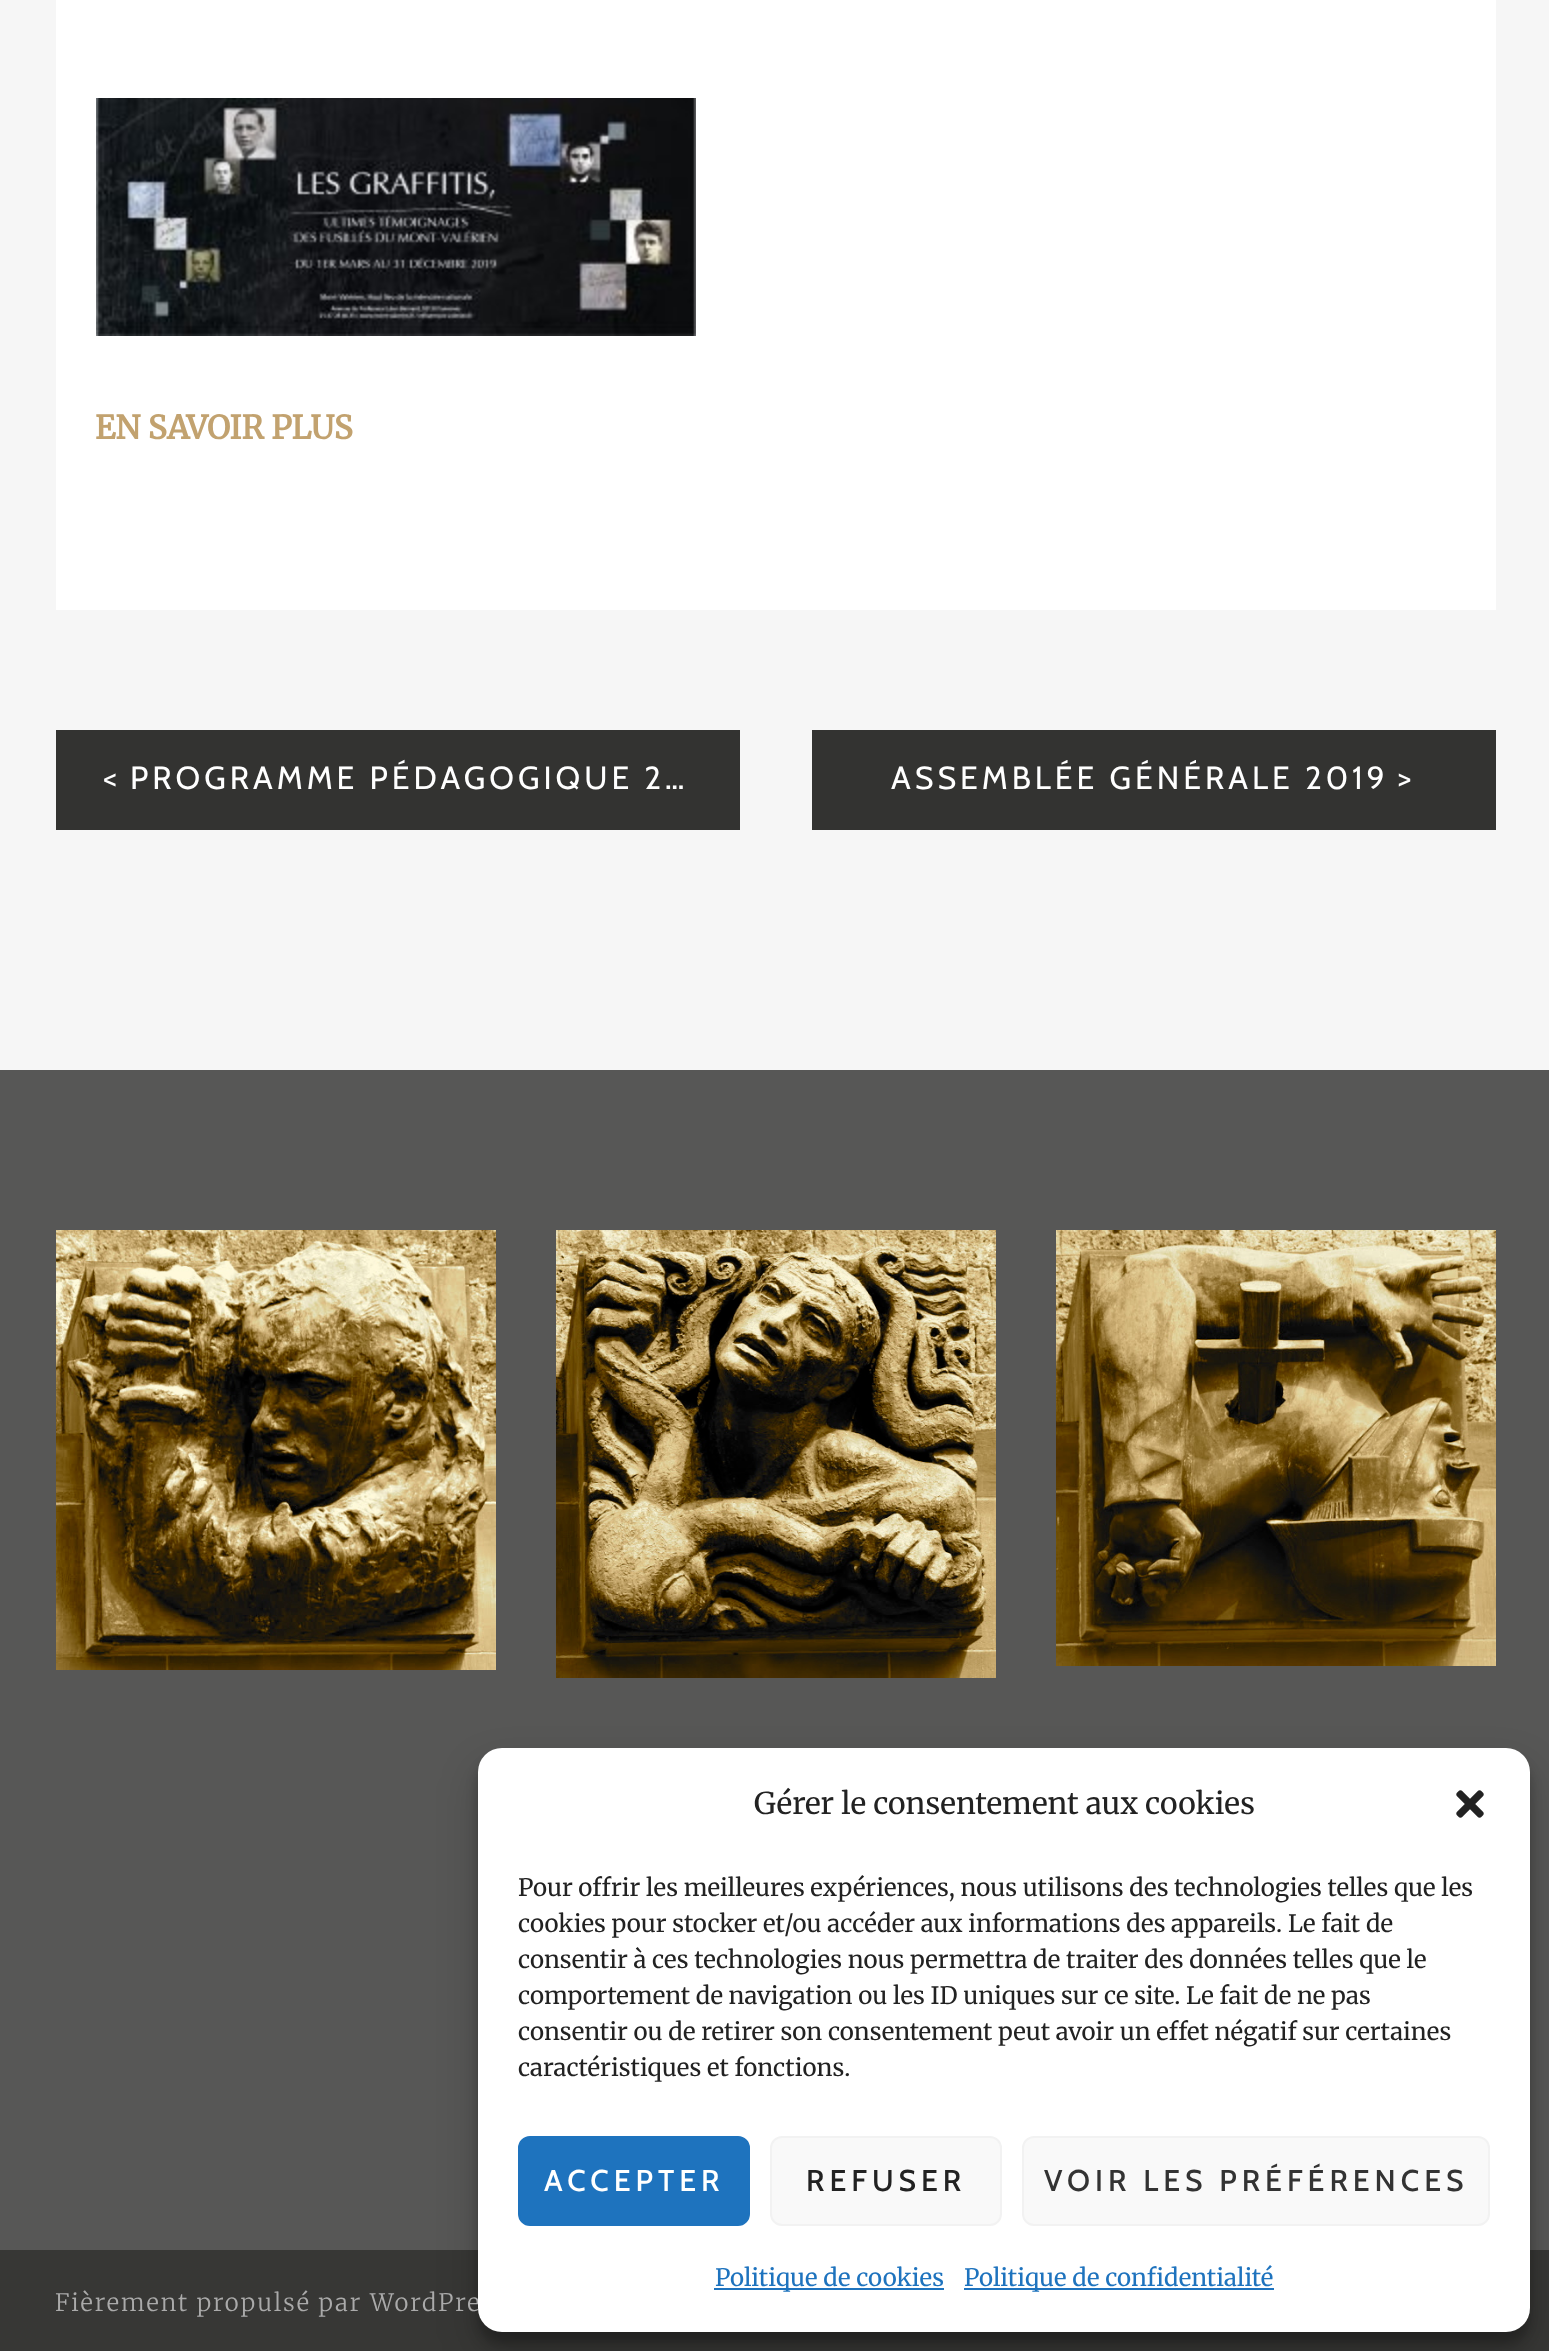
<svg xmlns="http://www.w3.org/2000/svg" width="1549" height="2351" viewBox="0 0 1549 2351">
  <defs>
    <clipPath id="clip1"><path d="M890 760h498v40H890z"/></clipPath>
  </defs>
  <rect width="100%" height="100%" fill="#f6f6f6"/>
  <path d="M56 0h1440v610H56z" fill="#fff"/>
  <image x="96" y="98" width="600" height="238" href="img/1.png"/>
  <path d="M56 730h684v100H56z" fill="#333331"/>
  <path d="M812 730h684v100H812z" fill="#333331"/>
  <path d="M0 1070h1549v1180H0z" fill="#575756"/>
  <image x="56" y="1230" width="440" height="440" href="img/2.png"/>
  <image x="556" y="1230" width="440" height="448" href="img/3.png"/>
  <image x="1056" y="1230" width="440" height="436" href="img/4.png"/>
  <path d="M0 2250h1549v101H0z" fill="#373735"/>
  <rect x="478" y="1760" width="1052" height="584" rx="24" fill="#0000003b" filter="blur(6px)"/>
  <rect x="478" y="1768" width="1052" height="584" rx="24" fill="#00000030" filter="blur(20px)"/>
  <text x="95" y="439" font-family="Merriweather" font-size="32" font-weight="bold" fill="#c2a26f">EN SAVOIR PLUS</text>
  <g font-family="Cabin" font-size="32" letter-spacing="4" fill="#fff">
    <text x="103" y="789">&lt;</text>
    <text x="130" y="789">PROGRAMME PÉDAGOGIQUE 2…</text>
  </g>
  <g clip-path="url(#clip1)">
    <text x="891" y="789" font-family="Cabin" font-size="32" letter-spacing="4" fill="#fff">ASSEMBLÉE GÉNÉRALE 2019</text>
  </g>
  <text x="1398" y="789" font-family="Cabin" font-size="32" letter-spacing="4" fill="#fff">&gt;</text>
  <text x="55" y="2311" font-family="Merriweather" font-size="24" font-weight="300" letter-spacing="2" fill="#aaa">Fièrement propulsé par WordPre</text>
  <rect x="478" y="1748" width="1052" height="584" rx="24" fill="#fff"/>
  <text x="754" y="1814" font-family="Merriweather" font-size="30" fill="#222">Gérer le consentement aux cookies</text>
  <image x="1456" y="1790" width="28" height="28" href="img/5.png"/>
  <g font-family="Merriweather" font-size="24" fill="#222">
    <text x="518" y="1896">Pour offrir les meilleures expériences, nous utilisons des technologies telles que les</text>
    <text x="518" y="1932">cookies pour stocker et/ou accéder aux informations des appareils. Le fait de</text>
    <text x="518" y="1968">consentir à ces technologies nous permettra de traiter des données telles que le</text>
    <text x="518" y="2004">comportement de navigation ou les ID uniques sur ce site. Le fait de ne pas</text>
    <text x="518" y="2040">consentir ou de retirer son consentement peut avoir un effet négatif sur certaines</text>
    <text x="518" y="2076">caractéristiques et fonctions.</text>
  </g>
  <rect x="519" y="2137" width="230" height="88" rx="11" fill="#1e73be" stroke="#1e73be" stroke-width="2"/>
  <text x="544" y="2191" font-family="Cabin" font-size="30" font-weight="500" letter-spacing="5" fill="#fff">ACCEPTER</text>
  <rect x="771" y="2137" width="230" height="88" rx="11" fill="#f9f9f9" stroke="#f2f2f2" stroke-width="2"/>
  <text x="806" y="2191" font-family="Cabin" font-size="30" font-weight="500" letter-spacing="5" fill="#222">REFUSER</text>
  <rect x="1023" y="2137" width="466" height="88" rx="11" fill="#f9f9f9" stroke="#f2f2f2" stroke-width="2"/>
  <text x="1044" y="2191" font-family="Cabin" font-size="30" font-weight="500" letter-spacing="5" fill="#333">VOIR LES PRÉFÉRENCES</text>
  <path d="M714 2288h230v2H714z" fill="#1e73be"/>
  <text x="715" y="2286" font-family="Merriweather" font-size="24" fill="#1e73be">Politique de cookies</text>
  <path d="M964 2288h310v2H964z" fill="#1e73be"/>
  <text x="964" y="2286" font-family="Merriweather" font-size="24" fill="#1e73be">Politique de confidentialité</text>
</svg>
